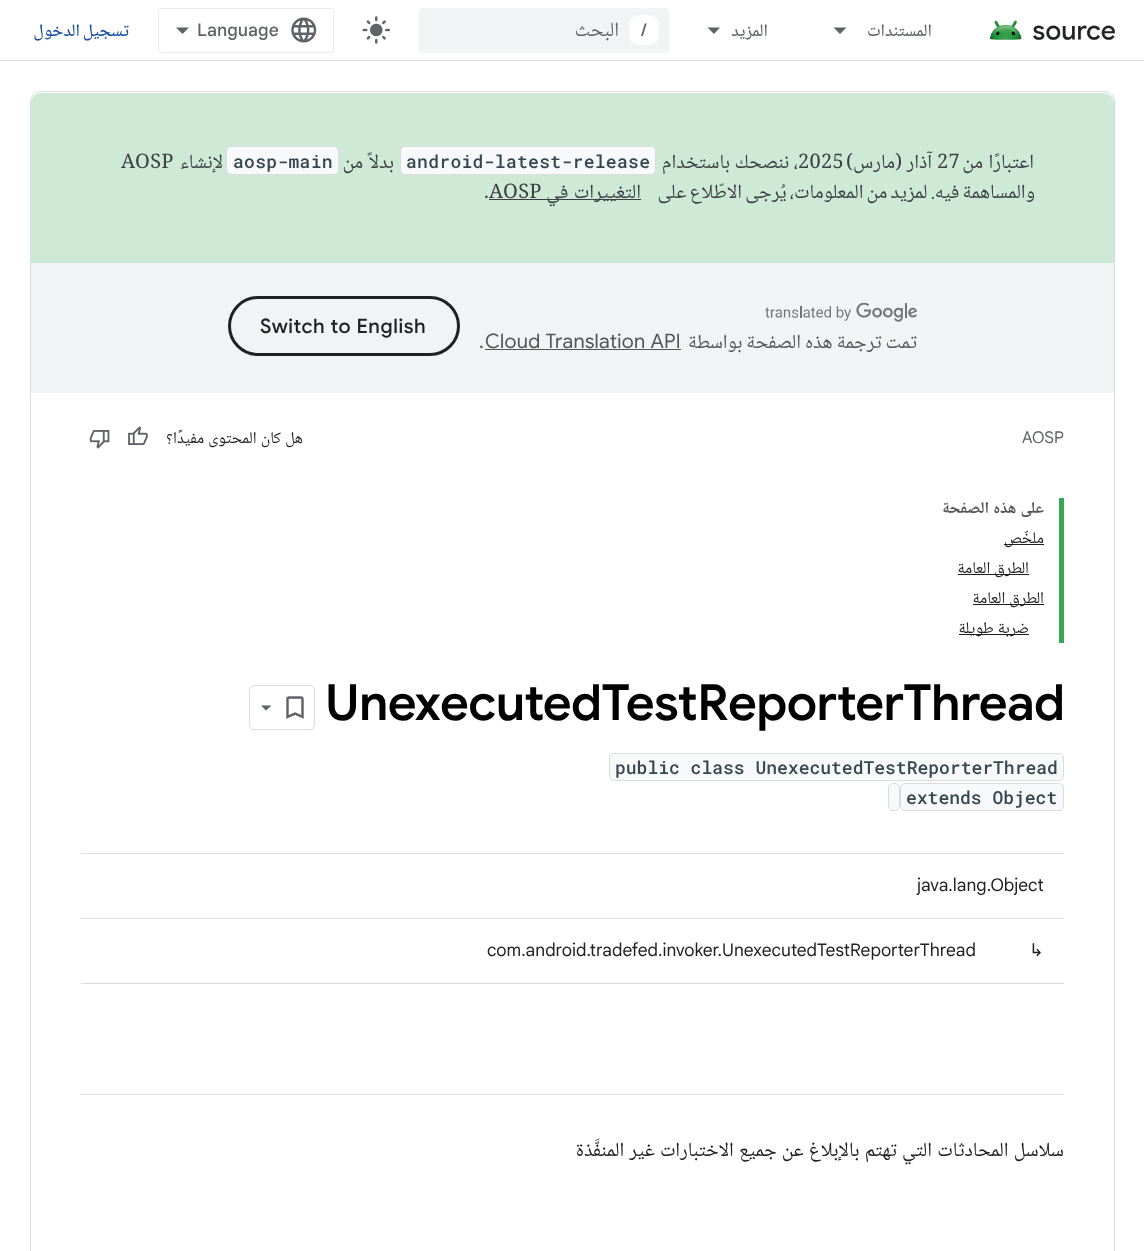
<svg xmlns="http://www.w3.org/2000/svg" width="1144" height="1251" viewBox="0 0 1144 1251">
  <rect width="100%" height="100%" fill="#fff"/>
  <path d="M0 60h1144v1H0z" fill="#dadce0"/>
  <image x="989" y="20" width="126" height="20" href="img/1.png"/>
  <path d="M833.5 27.5H846.5L840 34Z" fill="#5f6368"/>
  <path d="M707.5 27.5H720L714 34Z" fill="#5f6368"/>
  <rect x="419" y="8" width="250" height="45" rx="2.5" fill="#f1f3f4"/>
  <rect x="629" y="15" width="30" height="30" rx="10" fill="#fff"/>
  <image x="362" y="16" width="28" height="28" href="img/2.png"/>
  <rect x="158.5" y="8.5" width="175" height="44" rx="2" fill="none" stroke="#e8eaed"/>
  <image x="291" y="17" width="26" height="26" href="img/3.png"/>
  <path d="M182.5 34L176 27.5H189Z" fill="#5f6368"/>
  <rect x="30.5" y="91.5" width="1084" height="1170" rx="9.5" fill="none" stroke="#dadce0"/>
  <path d="M41 93H1104C1109.5 93 1114 97.5 1114 103V263H31V103C31 97.5 35.5 93 41 93Z" fill="#ceead6"/>
  <rect x="400.5" y="146.5" width="255" height="28" rx="4.5" fill="#f8f9fa" stroke="#dadce0"/>
  <rect x="226.5" y="146.5" width="112" height="28" rx="4.5" fill="#f8f9fa" stroke="#dadce0"/>
  <path d="M489 199h152v1H489z" fill="#3c4043"/>
  <path d="M31 263h1083v130H31z" fill="#f1f3f4"/>
  <rect x="229.5" y="297.5" width="229" height="57" rx="28.5" fill="none" stroke="#202124" stroke-width="3"/>
  <image x="765" y="303" width="153" height="19" href="img/4.png"/>
  <path d="M485 349h196v1H485z" fill="#545555"/>
  <image x="128" y="426" width="20" height="19" href="img/5.png"/>
  <image x="89" y="430" width="21" height="19" href="img/6.png"/>
  <path d="M1059 498h5v145H1059z" fill="#34a853"/>
  <path d="M1004 544h40v1H1004z" fill="#202124"/>
  <path d="M958 574h71v1H958z" fill="#202124"/>
  <path d="M973 604h71v1H973z" fill="#202124"/>
  <path d="M959 634h70v1H959z" fill="#202124"/>
  <rect x="249.5" y="685.5" width="65" height="44" rx="4.5" fill="none" stroke="#dadce0"/>
  <image x="286" y="696" width="18" height="23" href="img/7.png"/>
  <path d="M261 705.5H271.5L266 710.5Z" fill="#5f6368"/>
  <rect x="609.5" y="753.5" width="454" height="27" rx="4.5" fill="#f8f9fa" stroke="#dadce0"/>
  <rect x="900.5" y="783.5" width="163" height="27" rx="4.5" fill="#f8f9fa" stroke="#dadce0"/>
  <rect x="888.5" y="783.5" width="11" height="27" rx="4.5" fill="#f8f9fa" stroke="#dadce0"/>
  <path d="M81 853h983v1H81z" fill="#dadce0"/>
  <path d="M81 918h983v1H81z" fill="#dadce0"/>
  <path d="M81 983h983v1H81z" fill="#dadce0"/>
  <path d="M81 1094h983v1H81z" fill="#dadce0"/>
  <g font-family="Noto Naskh Arabic" font-size="17.5" font-weight="500" letter-spacing="0.3" direction="rtl" fill="#5f6368">
    <text x="932" y="36">المستندات</text>
    <text x="768" y="36">المزيد</text>
  </g>
  <text x="641" y="36" font-family="Google Sans" font-size="17.5" font-weight="500" fill="#5f6368">/</text>
  <text x="619" y="36" font-family="Noto Naskh Arabic" font-size="20" direction="rtl" fill="#5f6368">البحث</text>
  <text x="197" y="36" font-family="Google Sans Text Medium" font-size="17.5" font-weight="500" fill="#5f6368">Language</text>
  <text x="129" y="36" word-spacing="-1" font-family="Noto Naskh Arabic" font-size="17.5" font-weight="500" letter-spacing="0.3" direction="rtl" fill="#174ea6">تسجيل الدخول</text>
  <text x="1034" y="168" word-spacing="1" font-family="Noto Naskh Arabic" font-size="20" letter-spacing="0.3" direction="rtl" fill="#3c4043">اعتبارًا من</text>
  <text x="937" y="168" font-family="Noto Naskh Arabic" font-size="20" letter-spacing="0.3" fill="#3c4043">27</text>
  <text x="932" y="168" font-family="Noto Naskh Arabic" font-size="20" letter-spacing="0.3" direction="rtl" fill="#3c4043">آذار (مارس)</text>
  <text x="798" y="168" font-family="Noto Naskh Arabic" font-size="20" letter-spacing="0.3" fill="#3c4043">2025</text>
  <text x="798" y="168" font-family="Noto Naskh Arabic" font-size="20" letter-spacing="0.3" direction="rtl" fill="#3c4043">، ننصحك باستخدام</text>
  <text x="406" y="168" font-family="Roboto Mono" font-size="18" font-weight="500" letter-spacing="0.3" fill="#37474f">android-latest-release</text>
  <text x="394" y="168" word-spacing="1" font-family="Noto Naskh Arabic" font-size="20" letter-spacing="0.3" direction="rtl" fill="#3c4043">بدلاً من</text>
  <text x="233" y="168" font-family="Roboto Mono" font-size="18" font-weight="500" letter-spacing="0.3" fill="#37474f">aosp-main</text>
  <text x="223" y="168" font-family="Noto Naskh Arabic" font-size="20" letter-spacing="0.3" direction="rtl" fill="#3c4043">لإنشاء</text>
  <text x="121" y="168" font-family="Noto Naskh Arabic" font-size="20" letter-spacing="0.3" fill="#3c4043">AOSP</text>
  <g font-family="Noto Naskh Arabic" font-size="20" letter-spacing="0.3" direction="rtl" fill="#3c4043">
    <text x="1035" y="198" word-spacing="-1.25">والمساهمة فيه. لمزيد من المعلومات، يُرجى الاطّلاع على</text>
    <text x="641" y="198" word-spacing="1">التغييرات في</text>
  </g>
  <text x="489" y="198" font-family="Noto Naskh Arabic" font-size="20" letter-spacing="0.3" fill="#3c4043">AOSP</text>
  <text x="484" y="198" font-family="Google Sans" font-size="20" letter-spacing="0.3" fill="#3c4043">.</text>
  <text x="260" y="333" font-family="Google Sans" font-size="20" font-weight="500" letter-spacing="0.6" fill="#202124">Switch to English</text>
  <text x="917" y="348" word-spacing="-0.5" font-family="Noto Naskh Arabic" font-size="20" letter-spacing="0.3" direction="rtl" fill="#545555">تمت ترجمة هذه الصفحة بواسطة</text>
  <g font-family="Google Sans" font-size="20" letter-spacing="0.3" fill="#545555">
    <text x="485" y="348">Cloud Translation API</text>
    <text x="479" y="348">.</text>
  </g>
  <text x="1022" y="443" font-family="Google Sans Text" font-size="16.25" fill="#5f6368">AOSP</text>
  <text x="303" y="443" word-spacing="0.5" font-family="Noto Naskh Arabic" font-size="16.25" direction="rtl" fill="#202124">هل كان المحتوى مفيدًا؟</text>
  <text x="1044" y="513" word-spacing="0.5" font-family="Noto Naskh Arabic" font-size="16.25" font-weight="bold" direction="rtl" fill="#545555">على هذه الصفحة</text>
  <g font-family="Noto Naskh Arabic" font-size="16.25" direction="rtl" fill="#202124">
    <text x="1044" y="543">ملخّص</text>
    <text x="1029" y="573" word-spacing="0.5">الطرق العامة</text>
    <text x="1044" y="603" word-spacing="0.5">الطرق العامة</text>
    <text x="1029" y="633" word-spacing="0.5">ضربة طويلة</text>
  </g>
  <text x="325" y="720" font-family="Google Sans" font-size="50" font-weight="600" letter-spacing="-0.6" fill="#000">UnexecutedTestReporterThread</text>
  <g font-family="Roboto Mono" font-size="18" font-weight="500" fill="#37474f">
    <text x="615" y="774">public class UnexecutedTestReporterThread</text>
    <text x="906" y="804">extends Object</text>
  </g>
  <text x="917" y="891" font-family="Google Sans Text" font-size="17.5" fill="#202124">java.lang.Object</text>
  <text x="1029" y="956" font-family="DejaVu Sans" font-size="17.5" fill="#202124">↳</text>
  <text x="487" y="956" font-family="Google Sans Text" font-size="17.5" fill="#202124">com.android.tradefed.invoker.UnexecutedTestReporterThread</text>
  <text x="1064" y="1156" word-spacing="0.75" font-family="Noto Naskh Arabic" font-size="20" direction="rtl" fill="#202124">سلاسل المحادثات التي تهتم بالإبلاغ عن جميع الاختبارات غير المنفَّذة</text>
</svg>
